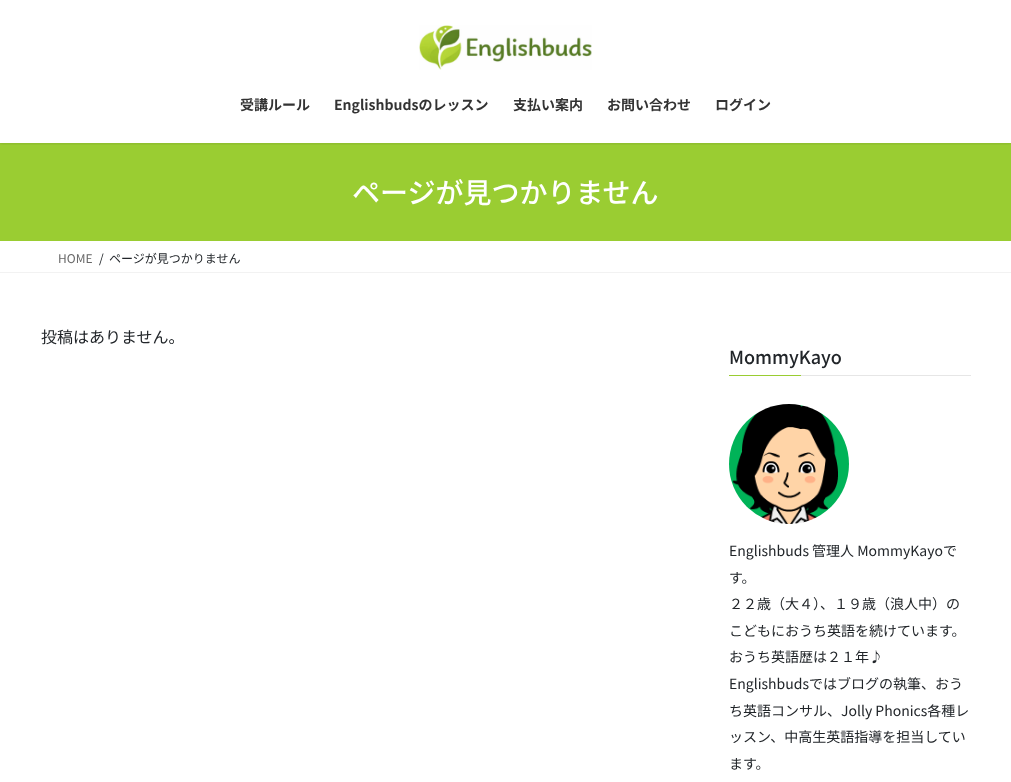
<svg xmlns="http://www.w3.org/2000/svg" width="1011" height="782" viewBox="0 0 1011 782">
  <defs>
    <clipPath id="clip1"><path d="M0 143h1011v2H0z"/></clipPath>
  </defs>
  <rect width="100%" height="100%" fill="#fff"/>
  <path d="M0 143h1011v98H0z" fill="#9acd32"/>
  <g clip-path="url(#clip1)">
    <path d="M0 1h1011v143H0z" fill="#0000001a" filter="blur(1.5px)"/>
  </g>
  <image x="419" y="25" width="173" height="45" href="img/1.png"/>
  <path d="M0 272h1011v1H0z" fill="#f2f2f2"/>
  <path d="M801 375h170v1H801z" fill="#e6e6e6"/>
  <path d="M729 375h72v1H729z" fill="#9acd32"/>
  <image x="729" y="404" width="120" height="120" href="img/2.png"/>
  <g font-family="Noto Sans JP" font-size="14" font-weight="bold" fill="#333">
    <text x="240" y="110">受講ルール</text>
    <text x="334" y="110">Englishbudsのレッスン</text>
    <text x="513" y="110">支払い案内</text>
    <text x="607" y="110">お問い合わせ</text>
    <text x="715" y="110">ログイン</text>
  </g>
  <text x="352" y="203" font-family="Noto Sans JP" font-size="28" font-weight="500" fill="#fff">ページが見つかりません</text>
  <text x="58" y="263" font-family="Noto Sans JP" font-size="12" fill="#666">HOME</text>
  <g font-family="Noto Sans JP" font-size="12" fill="#212529">
    <text x="99" y="263">/</text>
    <text x="109" y="263">ページが見つかりません</text>
  </g>
  <text x="41" y="343" font-family="Noto Sans JP" font-size="16" fill="#212529">投稿はありません。</text>
  <text x="729" y="364" font-family="Noto Sans JP" font-size="18" font-weight="500" fill="#212529">MommyKayo</text>
  <g font-family="Noto Sans JP" font-size="14" fill="#212529">
    <text x="729" y="556">Englishbuds 管理人 MommyKayoで</text>
    <text x="729" y="583">す。</text>
    <text x="729" y="609">２２歳（大４）、１９歳（浪人中）の</text>
    <text x="729" y="636">こどもにおうち英語を続けています。</text>
    <text x="729" y="662">おうち英語歴は２１年♪</text>
    <text x="729" y="689">Englishbudsではブログの執筆、おう</text>
    <text x="729" y="716">ち英語コンサル、Jolly Phonics各種レ</text>
    <text x="729" y="742">ッスン、中高生英語指導を担当してい</text>
    <text x="729" y="769">ます。</text>
  </g>
</svg>
